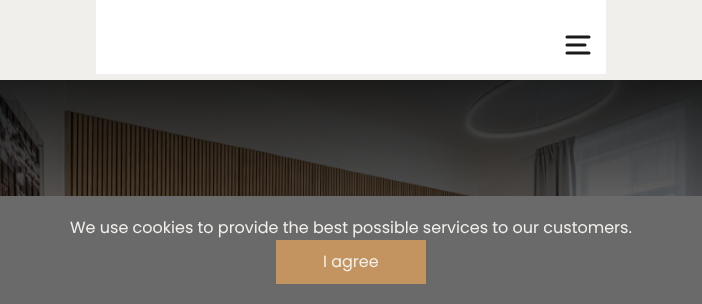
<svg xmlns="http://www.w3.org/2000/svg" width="702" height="304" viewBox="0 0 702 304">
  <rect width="100%" height="100%" fill="#fff"/>
  <path d="M0 0h702v80H0z" fill="#f1efeb"/>
  <path d="M96 0h510v74H96z" fill="#fff"/>
  <path d="M567 37H589M567 45H585M567 53H589" fill="none" stroke="#1a1a1a" stroke-width="3" stroke-linecap="round"/>
  <image x="0" y="80" width="702" height="116" href="img/1.png"/>
  <path d="M0 196h702v108H0z" fill="#6a6a6a"/>
  <path d="M276 240h150v44H276z" fill="#c3945f"/>
  <g font-family="Poppins" font-size="16" fill="#f1efeb">
    <text x="70" y="233">We use cookies to provide the best possible services to our customers.</text>
    <text x="323" y="267">I agree</text>
  </g>
</svg>
